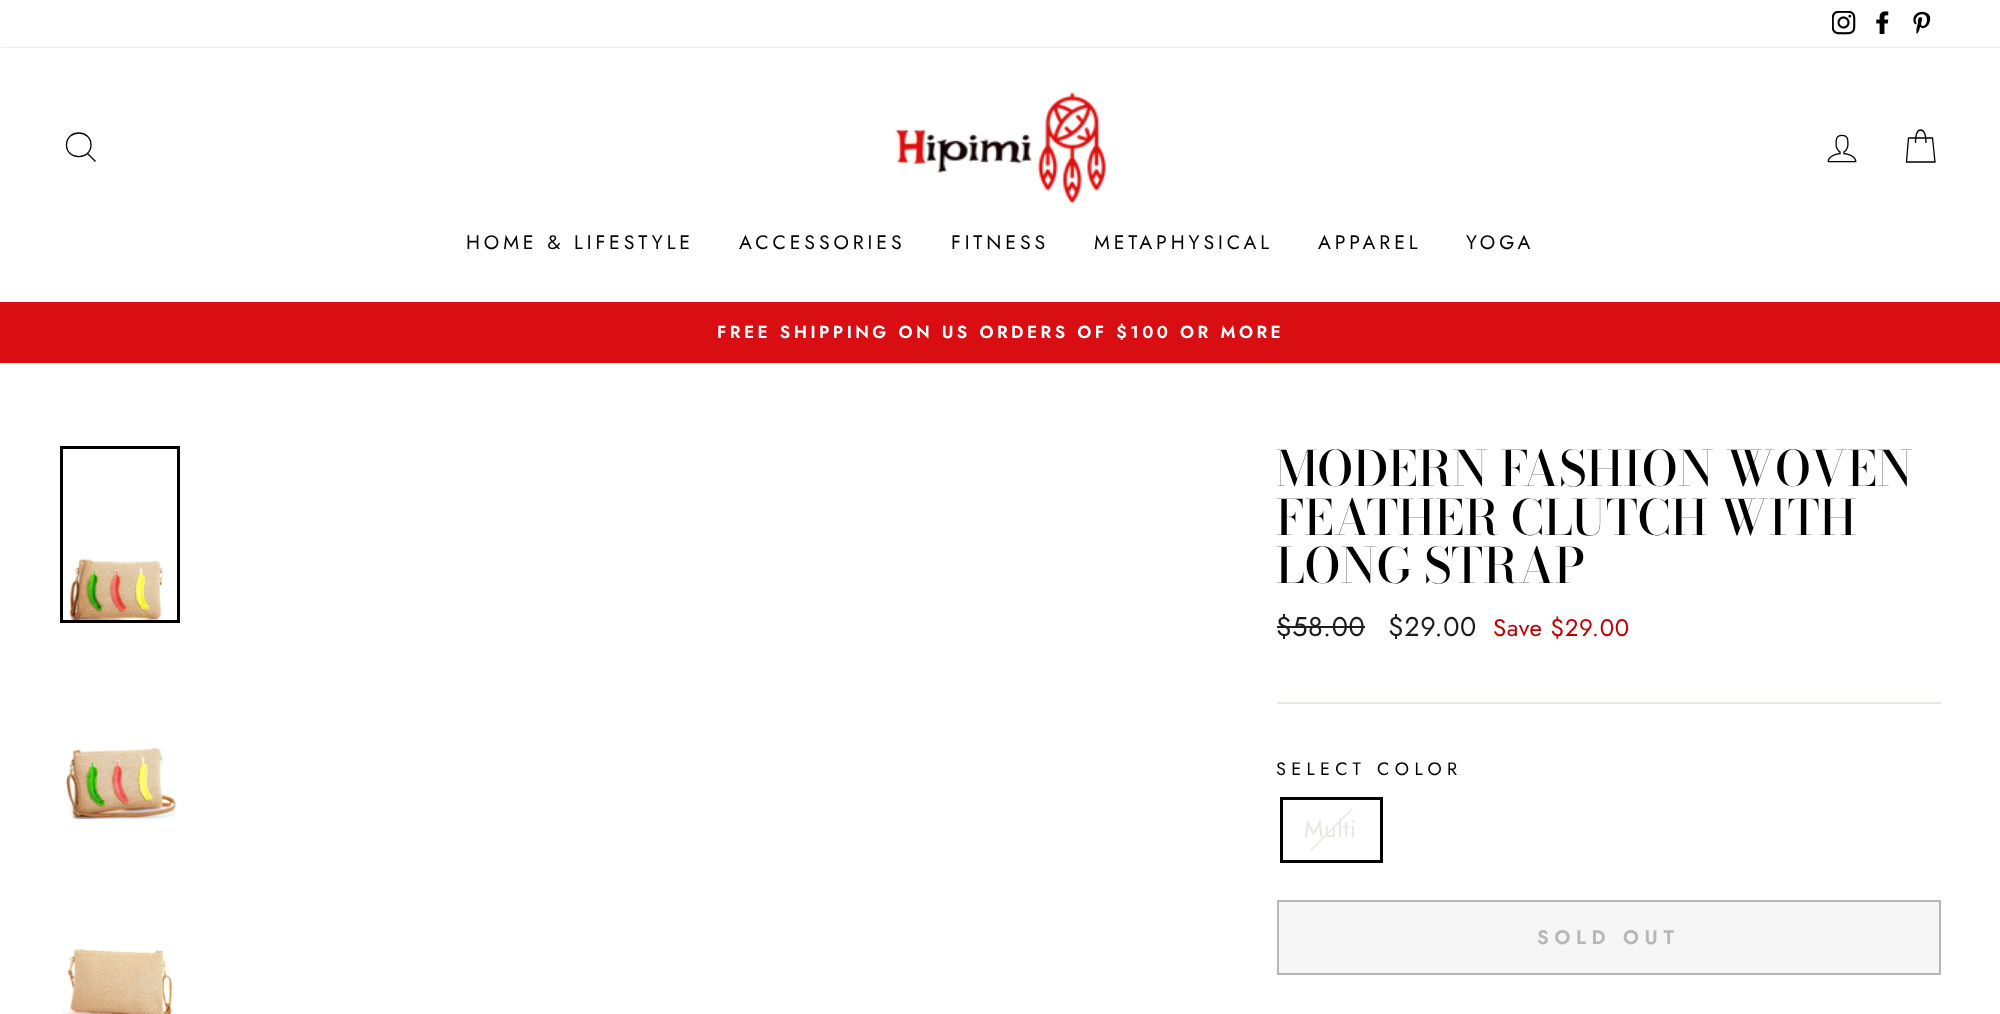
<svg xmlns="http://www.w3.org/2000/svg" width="2000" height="1014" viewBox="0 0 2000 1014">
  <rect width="100%" height="100%" fill="#fff"/>
  <image x="1832" y="11" width="24" height="24" href="img/1.png"/>
  <image x="1876" y="11" width="13" height="23" href="img/2.png"/>
  <image x="1913" y="11" width="18" height="23" href="img/3.png"/>
  <path d="M0 48h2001v254H0z" fill="#00000033" filter="blur(1px)"/>
  <path d="M0 48h2000v254H0z" fill="#fff"/>
  <path d="M91 145C91 160.5 66.5 160.5 66.5 145C66.5 129 91 129 91 145ZM95.5 161.5L87.5 153.5" fill="none" stroke="#000" stroke-width="1.3"/>
  <image x="895" y="92" width="211" height="111" href="img/4.png"/>
  <image x="1827" y="134" width="30" height="29" href="img/5.png"/>
  <path d="M1915.5 143C1915.5 132.5 1917.5 130 1920.5 130C1923.5 130 1926 132.5 1926 143M1908.5 138H1932.5L1935 162H1906.5Z" fill="none" stroke="#000" stroke-width="1.3"/>
  <path d="M0 302h2000v61H0z" fill="#d90e12"/>
  <path d="M61.5 447.5h117v174H61.5z" fill="none" stroke="#000" stroke-width="3"/>
  <image x="68" y="558" width="101" height="62" href="img/6.png"/>
  <image x="63" y="747" width="114" height="72" href="img/7.png"/>
  <image x="63" y="948" width="114" height="66" href="img/8.png"/>
  <path d="M1277 626h88v2H1277z" fill="#1c1d1d"/>
  <path d="M1277 702h664v2H1277z" fill="#e8e8e1"/>
  <path d="M1281.5 798.5h100v63H1281.5z" fill="none" stroke="#000" stroke-width="3"/>
  <path d="M1352 808L1353 809L1311 851L1310 850Z" fill="#e8e8e1"/>
  <path d="M1278 901h662v73H1278z" fill="#f6f6f6" stroke="#b6b6b6" stroke-width="2"/>
  <g font-family="Jost" font-size="19.5" letter-spacing="3.9" fill="#000">
    <text x="466" y="249">HOME &amp; LIFESTYLE</text>
    <text x="739" y="249">ACCESSORIES</text>
    <text x="951" y="249">FITNESS</text>
    <text x="1094" y="249">METAPHYSICAL</text>
    <text x="1318" y="249">APPAREL</text>
    <text x="1466" y="249">YOGA</text>
  </g>
  <text x="717" y="338" font-family="Jost" font-size="17.35" font-weight="600" letter-spacing="3.45" fill="#fff">FREE SHIPPING ON US ORDERS OF $100 OR MORE</text>
  <g font-family="Bodoni Moda" font-size="48.5" font-weight="500" fill="#000">
    <text x="1276" y="486">MODERN FASHION WOVEN</text>
    <text x="1276" y="535">FEATHER CLUTCH WITH</text>
    <text x="1276" y="583">LONG STRAP</text>
  </g>
  <g font-family="Jost" font-size="27" letter-spacing="0.6" fill="#1c1d1d">
    <text x="1276" y="636">$58.00</text>
    <text x="1388" y="636">$29.00</text>
  </g>
  <text x="1493" y="636" font-family="Jost" font-size="24" letter-spacing="0.6" fill="#c20000">Save $29.00</text>
  <text x="1276" y="775" font-family="Jost" font-size="18" letter-spacing="5.4" fill="#000">SELECT COLOR</text>
  <text x="1304" y="837" font-family="Jost" font-size="24" letter-spacing="0.6" fill="#e8e8e1">Multi</text>
  <text x="1537" y="944" font-family="Jost" font-size="19.5" font-weight="600" letter-spacing="5.75" fill="#b6b6b6">SOLD OUT</text>
</svg>
